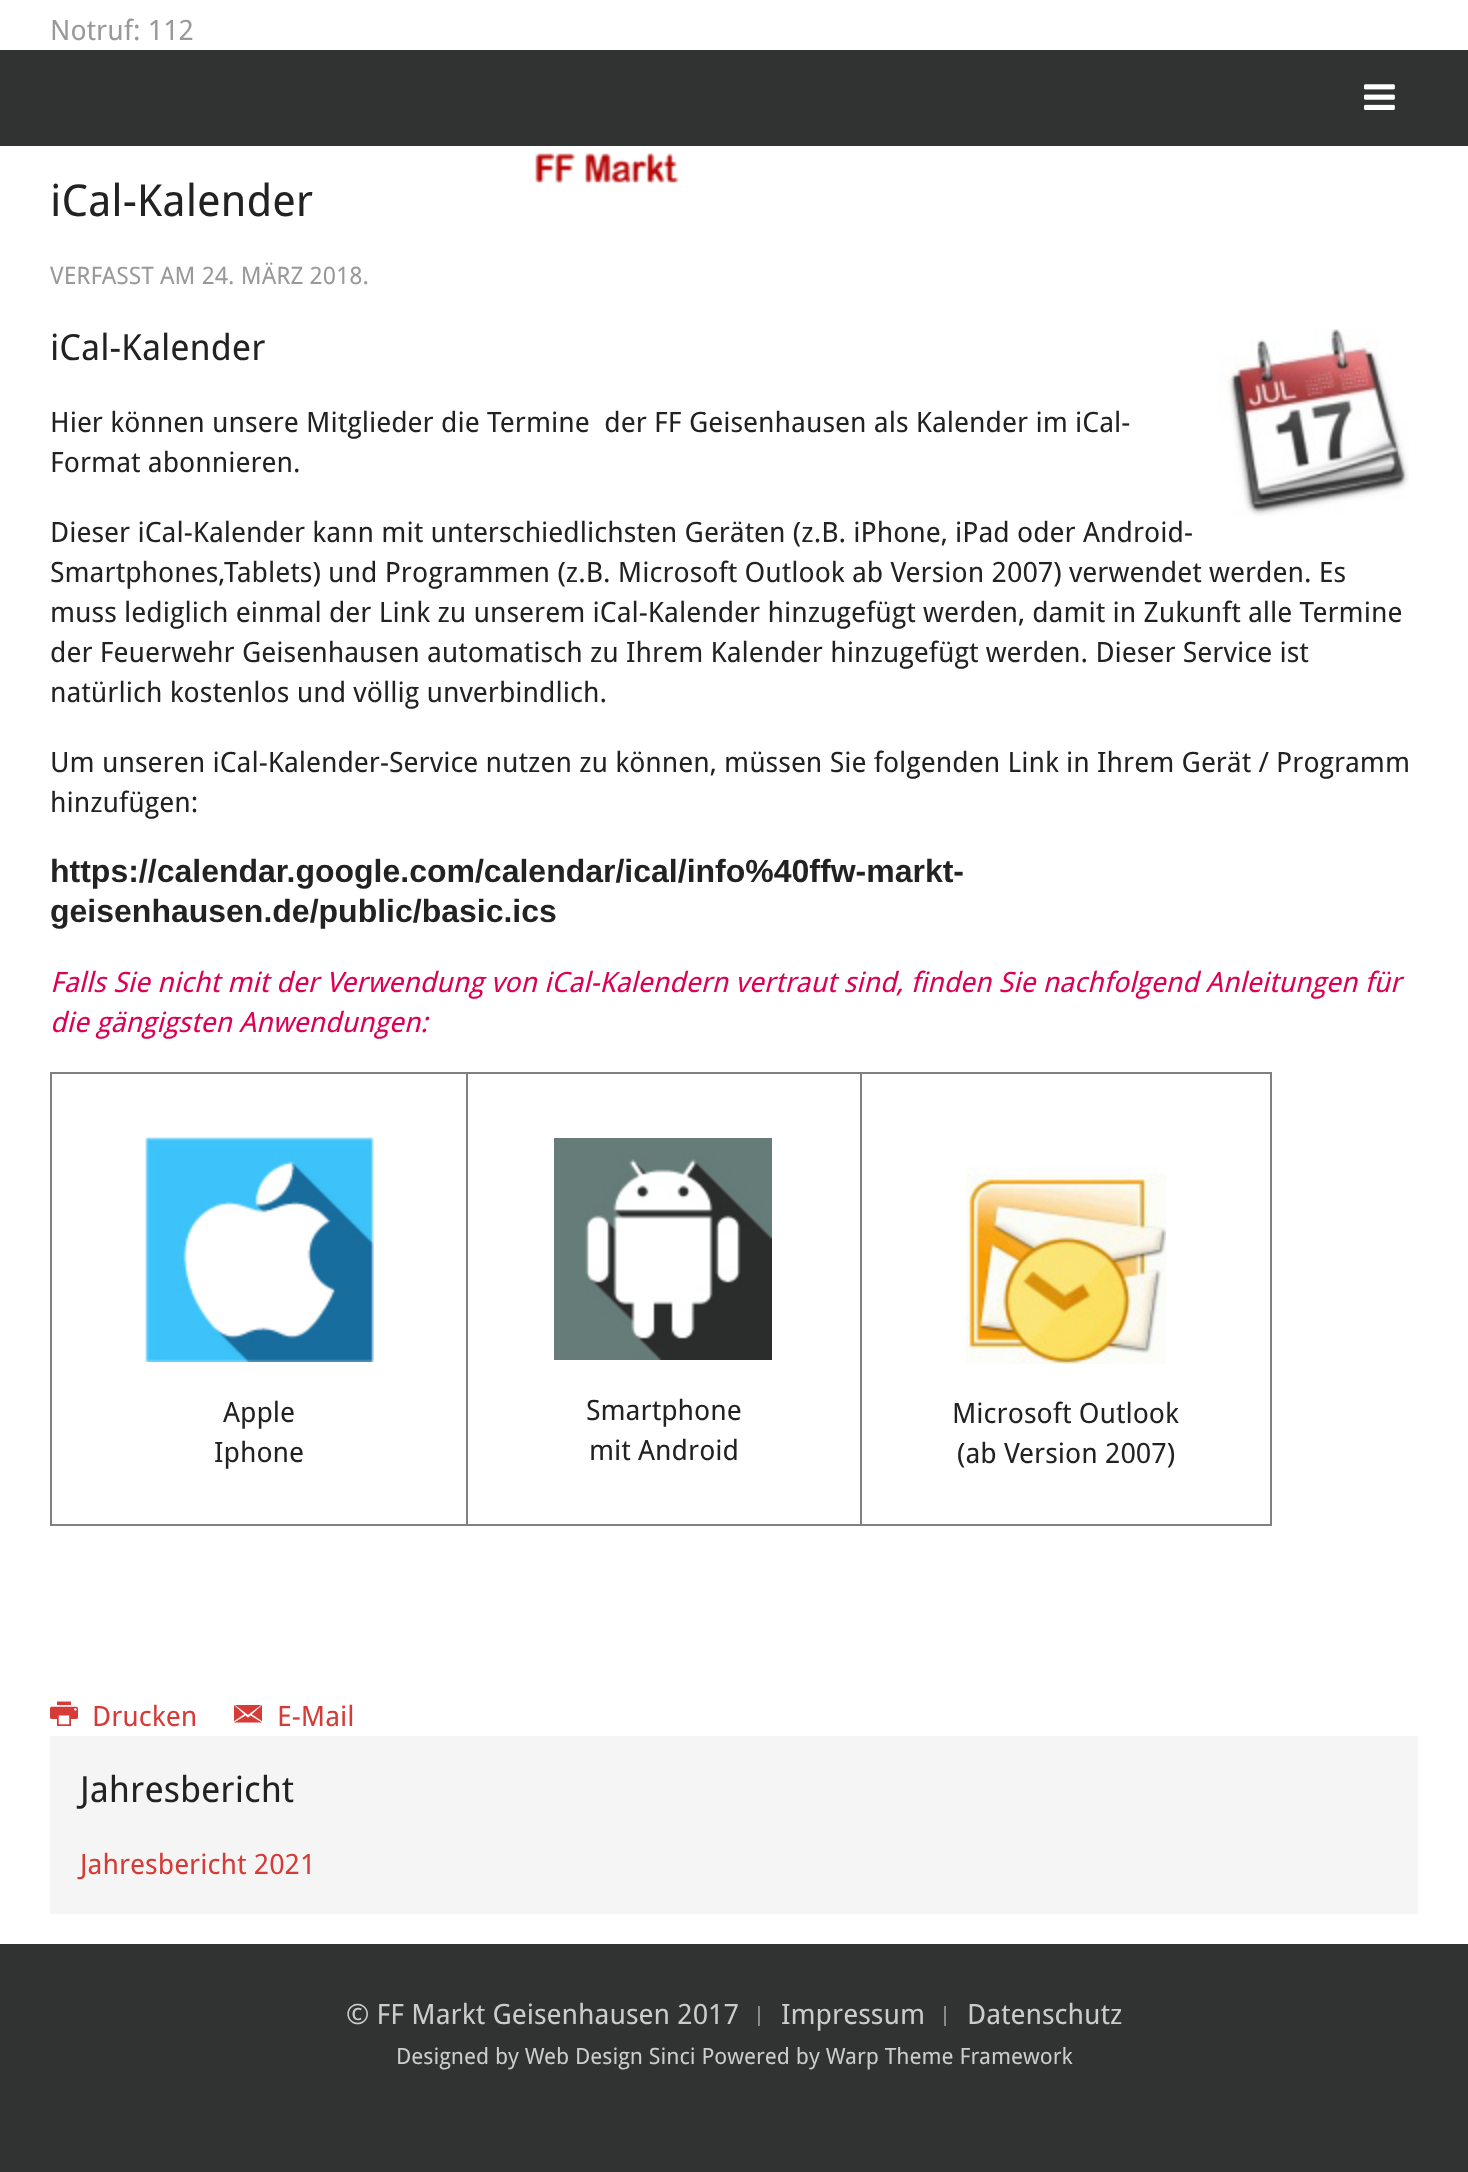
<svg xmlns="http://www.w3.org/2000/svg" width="1468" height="2172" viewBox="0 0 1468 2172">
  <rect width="100%" height="100%" fill="#313232"/>
  <path d="M0 0h1468v50H0z" fill="#fff"/>
  <image x="1364" y="84" width="31" height="26" href="img/1.png"/>
  <path d="M0 146h1468v1798H0z" fill="#fff"/>
  <image x="535" y="153" width="144" height="30" href="img/2.png"/>
  <image x="1218" y="329" width="191" height="187" href="img/3.png"/>
  <path d="M50 1072h1222v2H50z" fill="#808080"/>
  <path d="M1270 1072h2v454H1270z" fill="#808080"/>
  <path d="M50 1524h1222v2H50z" fill="#808080"/>
  <path d="M50 1072h2v454H50z" fill="#808080"/>
  <image x="145" y="1137" width="229" height="225" href="img/4.png"/>
  <path d="M466 1072h2v454H466z" fill="#808080"/>
  <image x="554" y="1138" width="218" height="222" href="img/5.png"/>
  <path d="M860 1072h2v454H860z" fill="#808080"/>
  <image x="966" y="1166" width="200" height="198" href="img/6.png"/>
  <image x="50" y="1701" width="28" height="25" href="img/7.png"/>
  <image x="234" y="1705" width="28" height="18" href="img/8.png"/>
  <path d="M50 1736h1368v178H50z" fill="#f5f5f5"/>
  <path d="M758 2006h2v20H758z" fill="#888"/>
  <path d="M944 2006h2v20H944z" fill="#888"/>
  <text x="50" y="40" font-family="Droid Sans" font-size="28" fill="#999">Notruf: 112</text>
  <text x="50" y="216" font-family="Droid Sans" font-size="44" fill="#222">iCal-Kalender</text>
  <text x="50" y="284" font-family="Droid Sans" font-size="24" fill="#999">VERFASST AM 24. MÄRZ 2018.</text>
  <text x="50" y="360" font-family="Droid Sans" font-size="36" fill="#222">iCal-Kalender</text>
  <g font-family="Droid Sans" font-size="28" fill="#222">
    <text x="50" y="432" xml:space="preserve">Hier können unsere Mitglieder die Termine  der FF Geisenhausen als Kalender im iCal-</text>
    <text x="50" y="472">Format abonnieren.</text>
    <text x="50" y="542">Dieser iCal-Kalender kann mit unterschiedlichsten Geräten (z.B. iPhone, iPad oder Android-</text>
    <text x="50" y="582">Smartphones,Tablets) und Programmen (z.B. Microsoft Outlook ab Version 2007) verwendet werden. Es</text>
    <text x="50" y="622">muss lediglich einmal der Link zu unserem iCal-Kalender hinzugefügt werden, damit in Zukunft alle Termine</text>
    <text x="50" y="662">der Feuerwehr Geisenhausen automatisch zu Ihrem Kalender hinzugefügt werden. Dieser Service ist</text>
    <text x="50" y="702">natürlich kostenlos und völlig unverbindlich.</text>
    <text x="50" y="772">Um unseren iCal-Kalender-Service nutzen zu können, müssen Sie folgenden Link in Ihrem Gerät / Programm</text>
    <text x="50" y="812">hinzufügen:</text>
  </g>
  <g font-family="Liberation Sans" font-size="32" font-weight="bold" fill="#222">
    <text x="50" y="882">https://calendar.google.com/calendar/ical/info%40ffw-markt-</text>
    <text x="50" y="922">geisenhausen.de/public/basic.ics</text>
  </g>
  <g font-family="Droid Sans" font-size="28" font-style="italic" fill="#d05">
    <text x="50" y="992">Falls Sie nicht mit der Verwendung von iCal-Kalendern vertraut sind, finden Sie nachfolgend Anleitungen für</text>
    <text x="50" y="1032">die gängigsten Anwendungen:</text>
  </g>
  <g font-family="Droid Sans" font-size="28" fill="#222">
    <text x="223" y="1422">Apple</text>
    <text x="214" y="1462">Iphone</text>
    <text x="586" y="1420">Smartphone</text>
    <text x="589" y="1460">mit Android</text>
    <text x="952" y="1423">Microsoft Outlook</text>
    <text x="957" y="1463">(ab Version 2007)</text>
  </g>
  <g font-family="Droid Sans" font-size="28" fill="#d63b37">
    <text x="92" y="1726">Drucken</text>
    <text x="277" y="1726">E-Mail</text>
  </g>
  <text x="80" y="1802" font-family="Droid Sans" font-size="36" fill="#222">Jahresbericht</text>
  <text x="80" y="1874" font-family="Droid Sans" font-size="28" fill="#d63b37">Jahresbericht 2021</text>
  <g font-family="Droid Sans" font-size="28" fill="#ccc">
    <text x="346" y="2024">© FF Markt Geisenhausen 2017</text>
    <text x="781" y="2024">Impressum</text>
    <text x="967" y="2024">Datenschutz</text>
  </g>
  <text x="396" y="2064" font-family="Droid Sans" font-size="22.4" fill="#ccc">Designed by Web Design Sinci Powered by Warp Theme Framework</text>
</svg>
